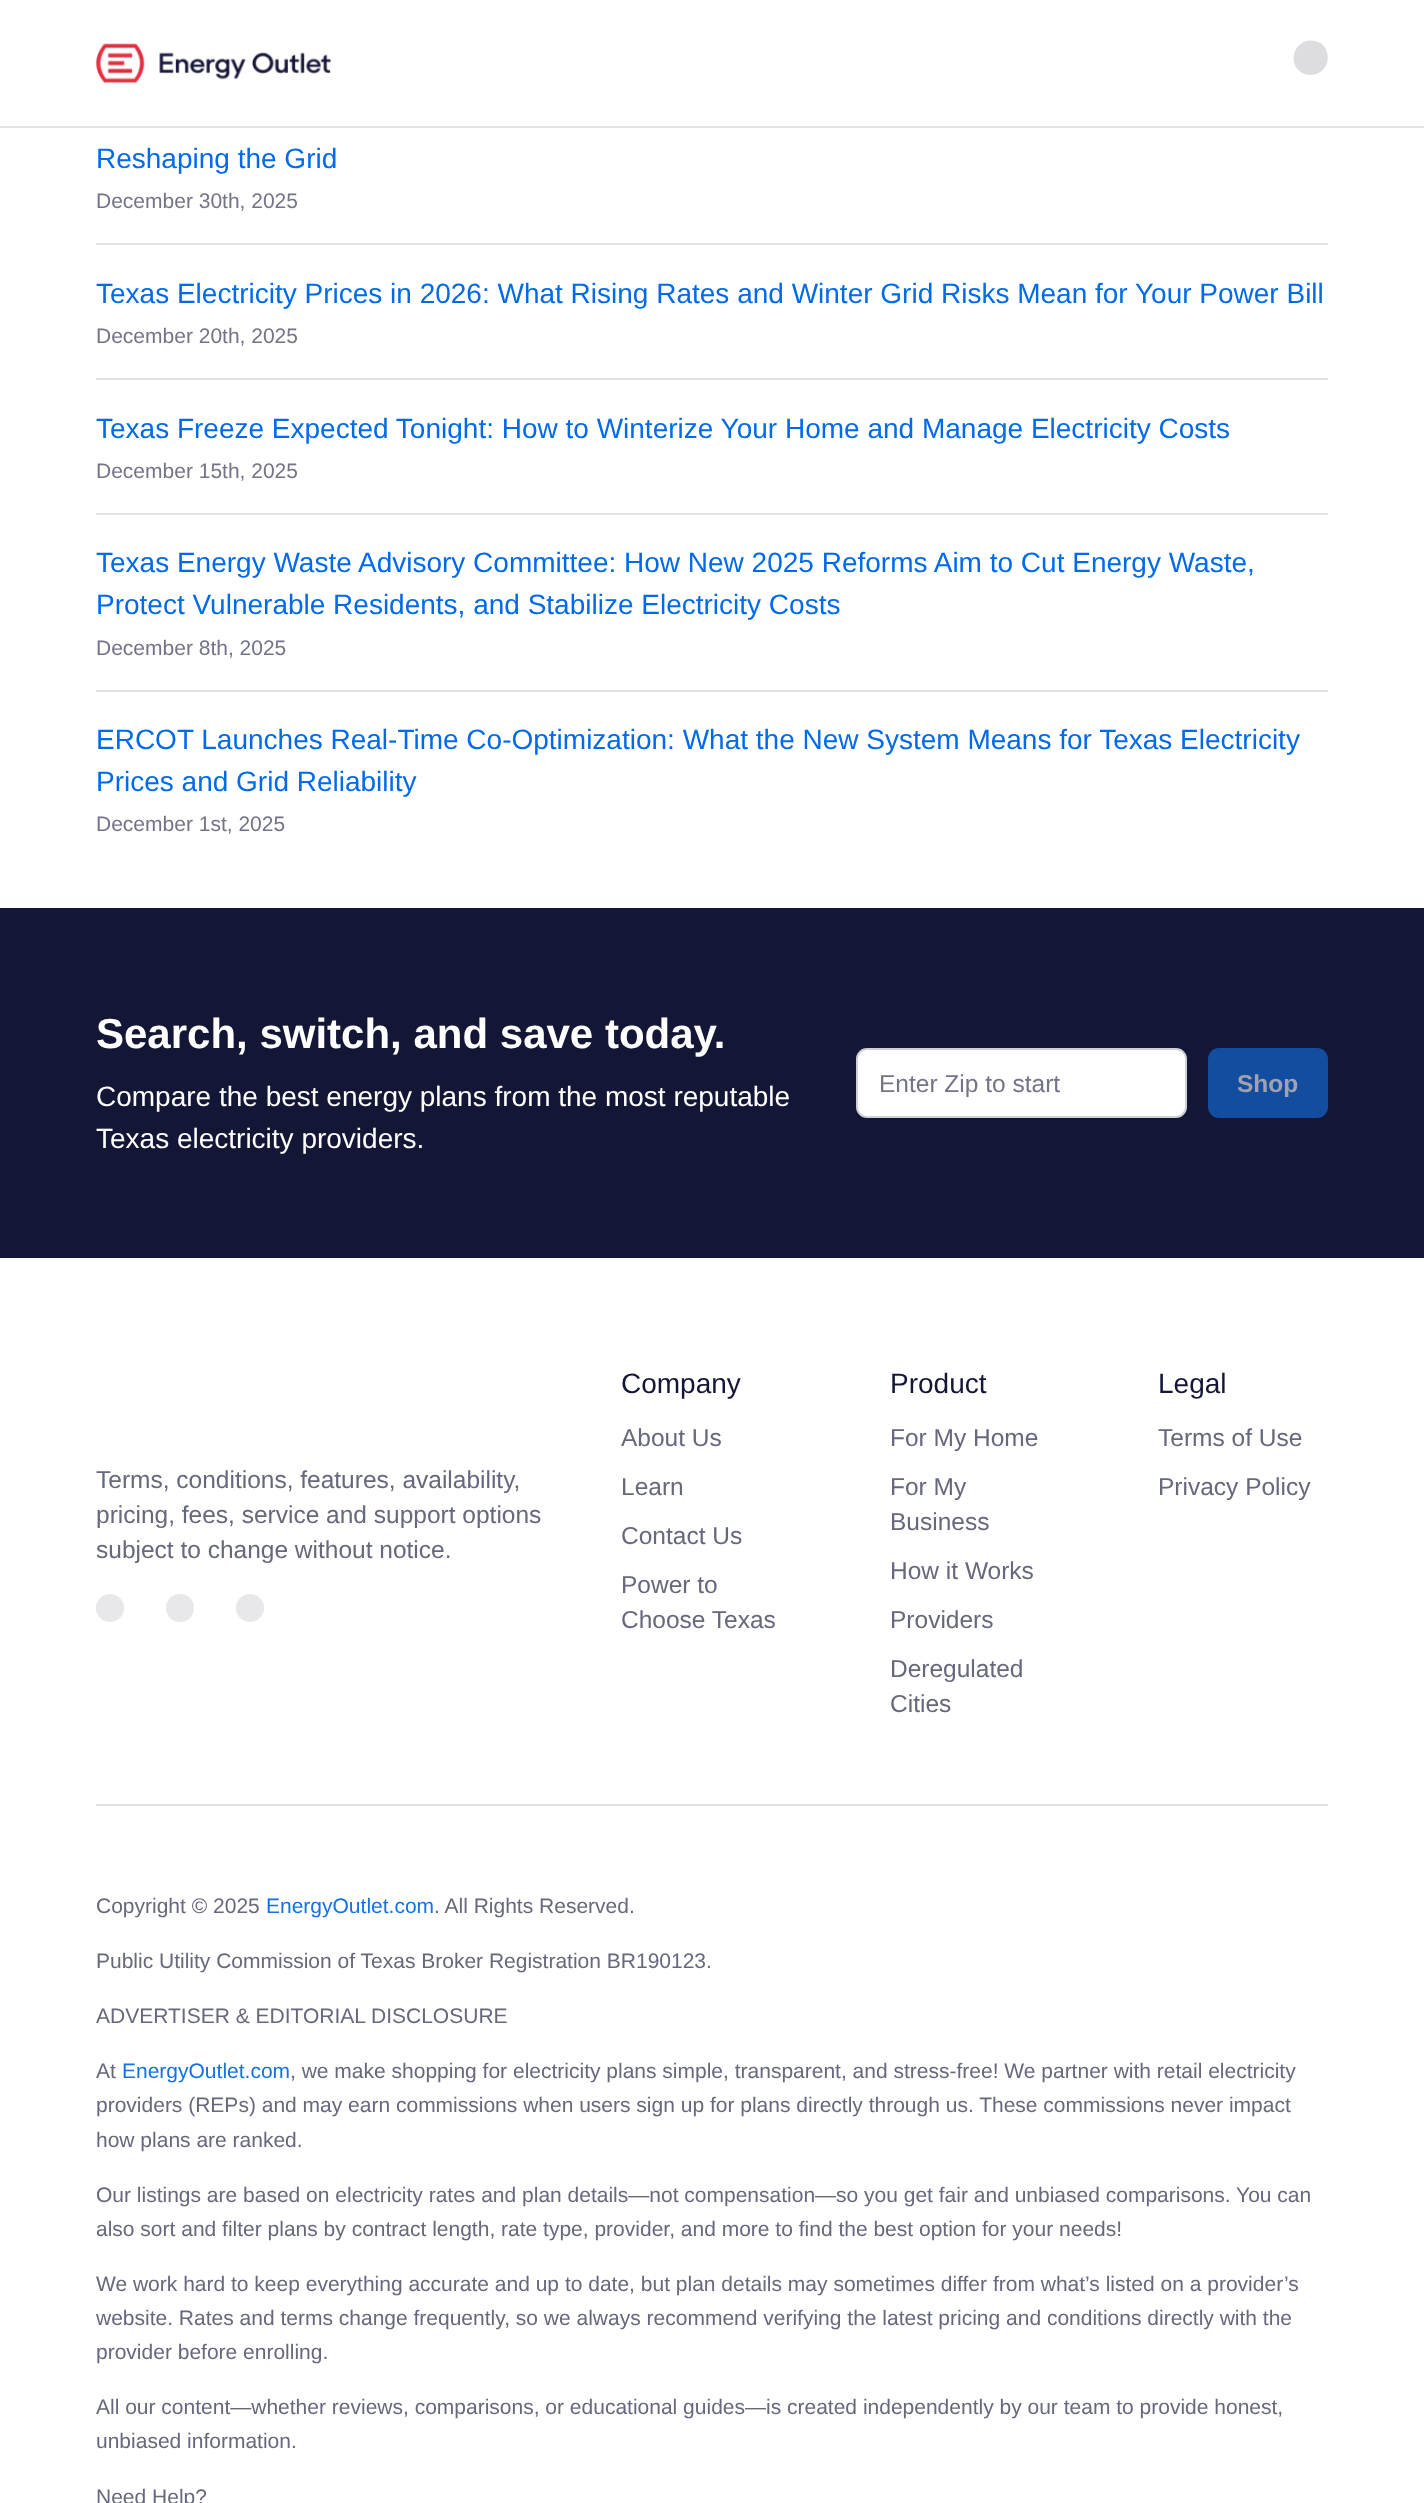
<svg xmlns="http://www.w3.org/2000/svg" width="1424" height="2503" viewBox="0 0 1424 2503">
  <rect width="100%" height="100%" fill="#fff"/>
  <path d="M0 126h1424v2H0z" fill="#e3e3e7"/>
  <image x="96" y="43" width="235" height="40" href="img/1.png"/>
  <path d="M1311 40.5C1333 40.5 1334 74 1310.5 75C1307.5 75 1305 74.5 1302.5 73C1287 65 1293 40.5 1311 40.5Z" fill="#dcdce1"/>
  <path d="M96 243h1232v2H96z" fill="#e3e3e7"/>
  <path d="M96 378h1232v2H96z" fill="#e3e3e7"/>
  <path d="M96 513h1232v2H96z" fill="#e3e3e7"/>
  <path d="M96 690h1232v2H96z" fill="#e3e3e7"/>
  <path d="M0 908h1424v350H0z" fill="#141636"/>
  <rect x="857" y="1049" width="329" height="68" rx="10" fill="#fff" stroke="#d0d0d7" stroke-width="2"/>
  <rect x="1208" y="1048" width="120" height="70" rx="11" fill="#134d9f"/>
  <circle cx="110" cy="1608" r="14" fill="#e8e8eb"/>
  <circle cx="180" cy="1608" r="14" fill="#e8e8eb"/>
  <circle cx="250" cy="1608" r="14" fill="#e8e8eb"/>
  <path d="M96 1804h1232v2H96z" fill="#e3e3e7"/>
  <text x="96" y="168" font-family="Liberation Sans" font-size="28" fill="#006aeb">Reshaping the Grid</text>
  <text x="96" y="208" font-family="Liberation Sans" font-size="21" fill="#737487">December 30th, 2025</text>
  <text x="96" y="303" font-family="Liberation Sans" font-size="28" fill="#006aeb">Texas Electricity Prices in 2026: What Rising Rates and Winter Grid Risks Mean for Your Power Bill</text>
  <text x="96" y="343" font-family="Liberation Sans" font-size="21" fill="#737487">December 20th, 2025</text>
  <text x="96" y="438" font-family="Liberation Sans" font-size="28" fill="#006aeb">Texas Freeze Expected Tonight: How to Winterize Your Home and Manage Electricity Costs</text>
  <text x="96" y="478" font-family="Liberation Sans" font-size="21" fill="#737487">December 15th, 2025</text>
  <g font-family="Liberation Sans" font-size="28" fill="#006aeb">
    <text x="96" y="572">Texas Energy Waste Advisory Committee: How New 2025 Reforms Aim to Cut Energy Waste,</text>
    <text x="96" y="614">Protect Vulnerable Residents, and Stabilize Electricity Costs</text>
  </g>
  <text x="96" y="655" font-family="Liberation Sans" font-size="21" fill="#737487">December 8th, 2025</text>
  <g font-family="Liberation Sans" font-size="28" fill="#006aeb">
    <text x="96" y="749">ERCOT Launches Real-Time Co-Optimization: What the New System Means for Texas Electricity</text>
    <text x="96" y="791">Prices and Grid Reliability</text>
  </g>
  <text x="96" y="831" font-family="Liberation Sans" font-size="21" fill="#737487">December 1st, 2025</text>
  <text x="96" y="1048" font-family="Liberation Sans" font-size="42" font-weight="bold" fill="#fff">Search, switch, and save today.</text>
  <g font-family="Liberation Sans" font-size="28" fill="#fff">
    <text x="96" y="1106">Compare the best energy plans from the most reputable</text>
    <text x="96" y="1148">Texas electricity providers.</text>
  </g>
  <text x="879" y="1092" font-family="Liberation Sans" font-size="24.5" fill="#737487">Enter Zip to start</text>
  <text x="1237" y="1092" font-family="Liberation Sans" font-size="24.5" font-weight="bold" fill="#a1a2af">Shop</text>
  <g font-family="Liberation Sans" font-size="24.5" fill="#66687c">
    <text x="96" y="1488">Terms, conditions, features, availability,</text>
    <text x="96" y="1523">pricing, fees, service and support options</text>
    <text x="96" y="1558">subject to change without notice.</text>
  </g>
  <text x="621" y="1393" font-family="Liberation Sans" font-size="28" fill="#141636">Company</text>
  <g font-family="Liberation Sans" font-size="24.5" fill="#66687c">
    <text x="621" y="1446">About Us</text>
    <text x="621" y="1495">Learn</text>
    <text x="621" y="1544">Contact Us</text>
    <text x="621" y="1593">Power to</text>
    <text x="621" y="1628">Choose Texas</text>
  </g>
  <text x="890" y="1393" font-family="Liberation Sans" font-size="28" fill="#141636">Product</text>
  <g font-family="Liberation Sans" font-size="24.5" fill="#66687c">
    <text x="890" y="1446">For My Home</text>
    <text x="890" y="1495">For My</text>
    <text x="890" y="1530">Business</text>
    <text x="890" y="1579">How it Works</text>
    <text x="890" y="1628">Providers</text>
    <text x="890" y="1677">Deregulated</text>
    <text x="890" y="1712">Cities</text>
  </g>
  <text x="1158" y="1393" font-family="Liberation Sans" font-size="28" fill="#141636">Legal</text>
  <g font-family="Liberation Sans" font-size="24.5" fill="#66687c">
    <text x="1158" y="1446">Terms of Use</text>
    <text x="1158" y="1495">Privacy Policy</text>
  </g>
  <text x="96" y="1913" font-family="Liberation Sans" font-size="21" fill="#66687c">Copyright © 2025</text>
  <text x="266" y="1913" font-family="Liberation Sans" font-size="21" fill="#1372e5">EnergyOutlet.com</text>
  <g font-family="Liberation Sans" font-size="21" fill="#66687c">
    <text x="434" y="1913">. All Rights Reserved.</text>
    <text x="96" y="1968">Public Utility Commission of Texas Broker Registration BR190123.</text>
    <text x="96" y="2023">ADVERTISER &amp; EDITORIAL DISCLOSURE</text>
    <text x="96" y="2078">At</text>
  </g>
  <text x="122" y="2078" font-family="Liberation Sans" font-size="21" fill="#1372e5">EnergyOutlet.com</text>
  <g font-family="Liberation Sans" font-size="21" fill="#66687c">
    <text x="290" y="2078">, we make shopping for electricity plans simple, transparent, and stress-free! We partner with retail electricity</text>
    <text x="96" y="2112">providers (REPs) and may earn commissions when users sign up for plans directly through us. These commissions never impact</text>
    <text x="96" y="2147">how plans are ranked.</text>
    <text x="96" y="2202">Our listings are based on electricity rates and plan details—not compensation—so you get fair and unbiased comparisons. You can</text>
    <text x="96" y="2236">also sort and filter plans by contract length, rate type, provider, and more to find the best option for your needs!</text>
    <text x="96" y="2291">We work hard to keep everything accurate and up to date, but plan details may sometimes differ from what’s listed on a provider’s</text>
    <text x="96" y="2325">website. Rates and terms change frequently, so we always recommend verifying the latest pricing and conditions directly with the</text>
    <text x="96" y="2359">provider before enrolling.</text>
    <text x="96" y="2414">All our content—whether reviews, comparisons, or educational guides—is created independently by our team to provide honest,</text>
    <text x="96" y="2448">unbiased information.</text>
    <text x="96" y="2504">Need Help?</text>
  </g>
</svg>
